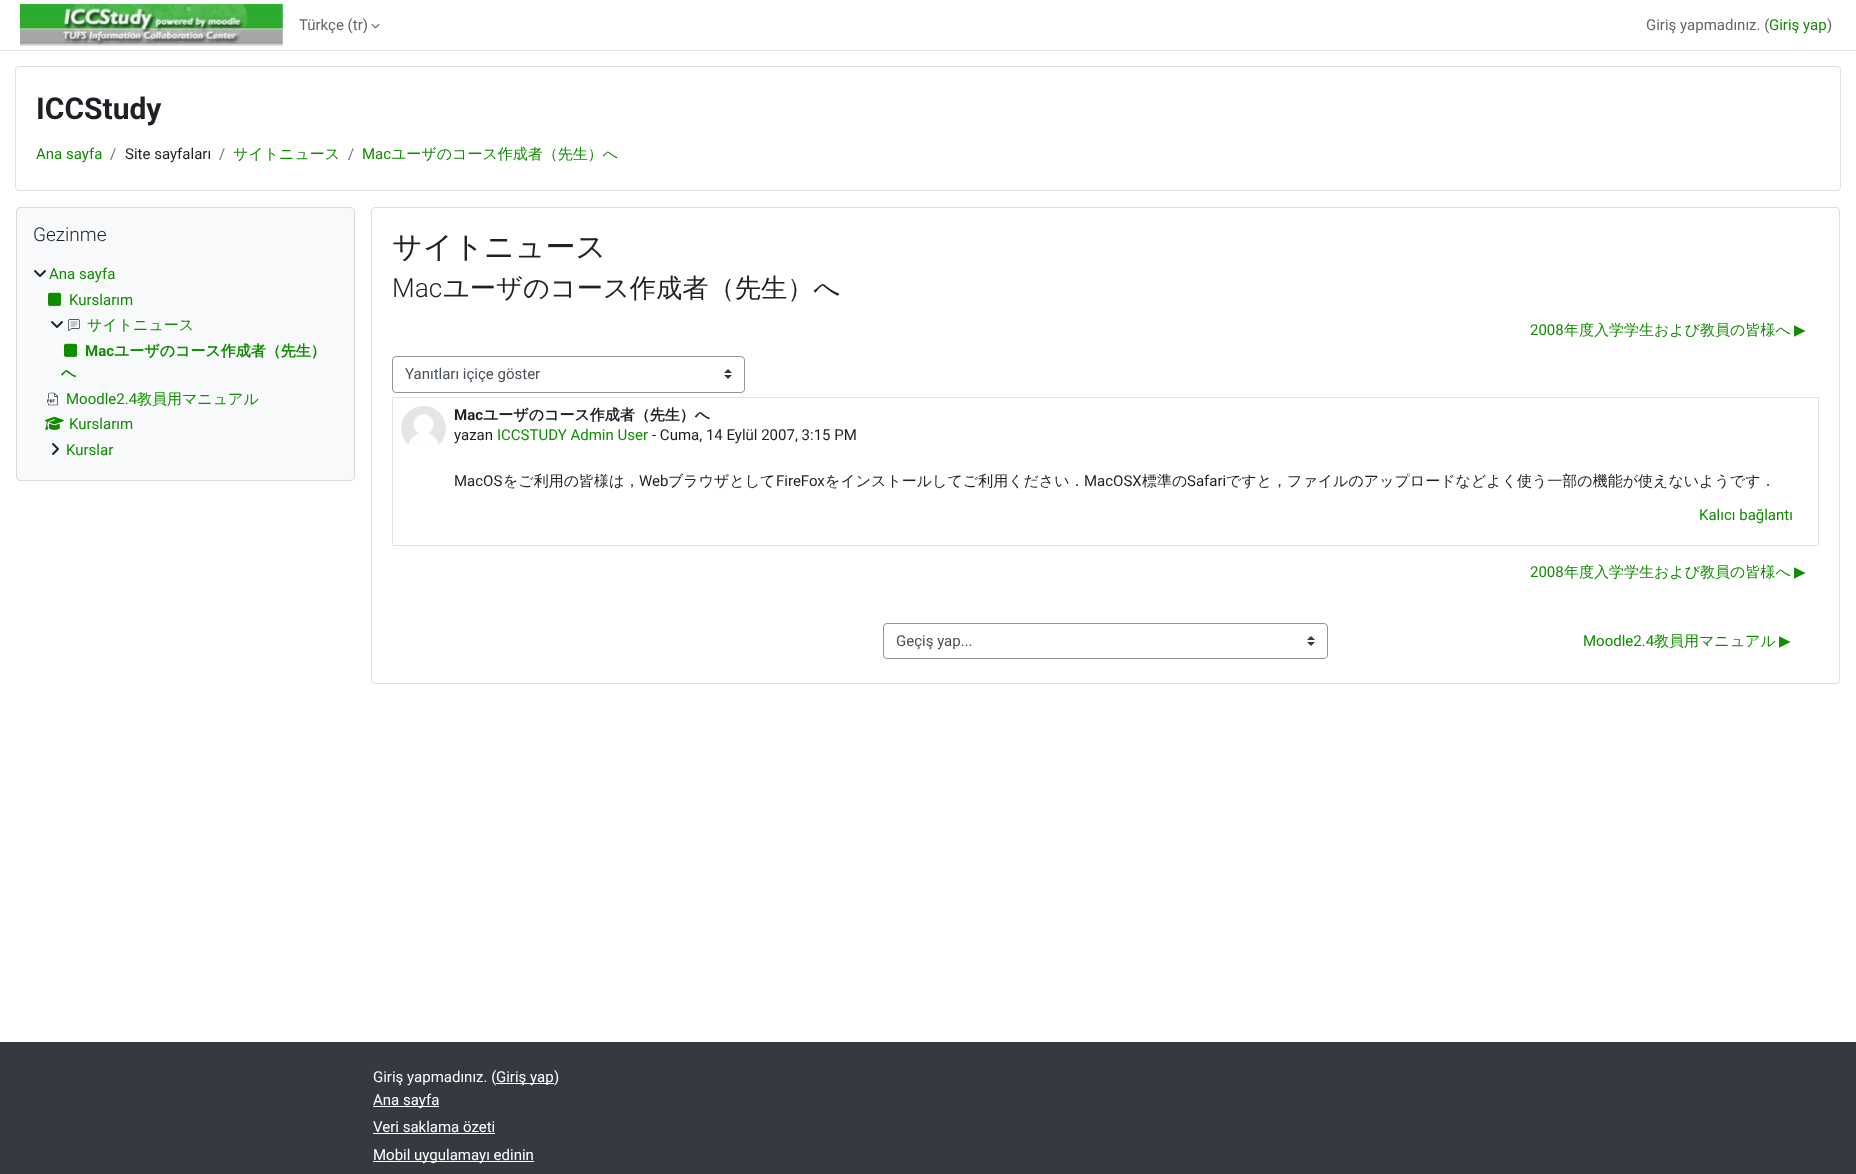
<svg xmlns="http://www.w3.org/2000/svg" width="1856" height="1174" viewBox="0 0 1856 1174">
  <rect width="100%" height="100%" fill="#fff"/>
  <path d="M0 50h1856v1H0z" fill="#dee2e6"/>
  <image x="20" y="4" width="263" height="42" href="img/1.png"/>
  <image x="371" y="24" width="9" height="5" href="img/2.png"/>
  <rect x="15.5" y="66.5" width="1825" height="124" rx="3.5" fill="none" stroke="#dfdfdf"/>
  <rect x="16.5" y="207.5" width="338" height="273" rx="3.5" fill="#f8f9fa" stroke="#d9dadb"/>
  <image x="34" y="270" width="12" height="7" href="img/3.png"/>
  <image x="48" y="292" width="14" height="14" href="img/4.png"/>
  <image x="51" y="321" width="12" height="7" href="img/3.png"/>
  <image x="68" y="319" width="12" height="12" href="img/5.png"/>
  <image x="64" y="343" width="14" height="14" href="img/4.png"/>
  <image x="47" y="392" width="11" height="14" href="img/6.png"/>
  <image x="45" y="416" width="19" height="14" href="img/7.png"/>
  <image x="52" y="443" width="7" height="12" href="img/8.png"/>
  <rect x="371.5" y="207.5" width="1468" height="476" rx="3.5" fill="none" stroke="#dfdfdf"/>
  <image x="724" y="369" width="8" height="10" href="img/9.png"/>
  <rect x="392.5" y="356.5" width="352" height="36" rx="3.5" fill="none" stroke="#8f959e"/>
  <path d="M392.5 397.5h1426v148H392.5z" fill="none" stroke="#dee2e6"/>
  <image x="401" y="406" width="45" height="39" href="img/10.png"/>
  <image x="1307" y="636" width="8" height="10" href="img/9.png"/>
  <rect x="883.5" y="623.5" width="444" height="35" rx="3.5" fill="none" stroke="#8f959e"/>
  <path d="M0 1042h1856v132H0z" fill="#343a40"/>
  <path d="M373 1106h66v1H373z" fill="#fff"/>
  <path d="M373 1133h122v1H373z" fill="#fff"/>
  <path d="M373 1161h161v1H373z" fill="#fff"/>
  <g font-family="Roboto" font-size="15" fill="#666">
    <text x="299" y="30">Türkçe (tr)</text>
    <text x="1646" y="30">Giriş yapmadınız. (</text>
  </g>
  <text x="1769" y="30" font-family="Roboto" font-size="15" fill="#108c00">Giriş yap</text>
  <text x="1827" y="30" font-family="Roboto" font-size="15" fill="#666">)</text>
  <text x="36" y="119" font-family="Roboto" font-size="30" font-weight="bold" fill="#1d2125">ICCStudy</text>
  <text x="36" y="159" font-family="Roboto" font-size="15" fill="#108c00">Ana sayfa</text>
  <text x="110" y="159" font-family="Roboto" font-size="15" fill="#6a737b">/</text>
  <text x="125" y="159" font-family="Roboto" font-size="15" fill="#1d2125">Site sayfaları</text>
  <text x="219" y="159" font-family="Roboto" font-size="15" fill="#6a737b">/</text>
  <text x="233" y="159" font-family="WenQuanYi Zen Hei" font-size="15" font-weight="500" fill="#108c00">サイトニュース</text>
  <text x="348" y="159" font-family="Roboto" font-size="15" fill="#6a737b">/</text>
  <text x="362" y="159" font-family="Roboto" font-size="15" fill="#108c00">Mac</text>
  <text x="391" y="159" font-family="WenQuanYi Zen Hei" font-size="15" font-weight="500" fill="#108c00">ユーザのコース作成者（先生）へ</text>
  <text x="33" y="241" font-family="Roboto" font-size="19" font-weight="300" fill="#1d2125">Gezinme</text>
  <g font-family="Roboto" font-size="15" fill="#108c00">
    <text x="49" y="279">Ana sayfa</text>
    <text x="69" y="305">Kurslarım</text>
  </g>
  <text x="87" y="330" font-family="WenQuanYi Zen Hei" font-size="15" font-weight="500" fill="#108c00">サイトニュース</text>
  <text x="85" y="356" font-family="Roboto" font-size="15" font-weight="bold" fill="#108c00">Mac</text>
  <g font-family="WenQuanYi Zen Hei" font-size="15" font-weight="bold" fill="#108c00">
    <text x="114" y="356">ユーザのコース作成者（先生）</text>
    <text x="61" y="378">へ</text>
  </g>
  <text x="66" y="404" font-family="Roboto" font-size="15" fill="#108c00">Moodle2.4</text>
  <text x="137" y="404" font-family="WenQuanYi Zen Hei" font-size="15" font-weight="500" fill="#108c00">教員用マニュアル</text>
  <g font-family="Roboto" font-size="15" fill="#108c00">
    <text x="69" y="429">Kurslarım</text>
    <text x="66" y="455">Kurslar</text>
  </g>
  <text x="392" y="257" font-family="WenQuanYi Zen Hei" font-size="30" font-weight="500" fill="#1d2125">サイトニュース</text>
  <text x="392" y="297" font-family="Roboto" font-size="26.25" font-weight="300" fill="#1d2125">Mac</text>
  <text x="443" y="297" font-family="WenQuanYi Zen Hei" font-size="26.25" font-weight="500" fill="#1d2125">ユーザのコース作成者（先生）へ</text>
  <text x="1530" y="335" font-family="Roboto" font-size="15" fill="#108c00">2008</text>
  <text x="1564" y="335" font-family="WenQuanYi Zen Hei" font-size="15" font-weight="500" fill="#108c00">年度入学学生および教員の皆様へ</text>
  <text x="1794" y="335" font-family="DejaVu Sans" font-size="15" fill="#108c00">▶︎</text>
  <text x="405" y="379" font-family="Roboto" font-size="15" fill="#495057">Yanıtları içiçe göster</text>
  <text x="454" y="420" font-family="Roboto" font-size="15" font-weight="bold" fill="#1d2125">Mac</text>
  <text x="483" y="420" font-family="WenQuanYi Zen Hei" font-size="15" font-weight="bold" fill="#1d2125">ユーザのコース作成者（先生）へ</text>
  <text x="454" y="440" font-family="Roboto" font-size="15" fill="#1d2125">yazan</text>
  <text x="497" y="440" font-family="Roboto" font-size="15" fill="#108c00">ICCSTUDY Admin User</text>
  <g font-family="Roboto" font-size="15" fill="#1d2125">
    <text x="652" y="440">- Cuma, 14 Eylül 2007, 3:15 PM</text>
    <text x="454" y="486">MacOS</text>
  </g>
  <text x="503" y="486" font-family="WenQuanYi Zen Hei" font-size="15" font-weight="500" fill="#1d2125">をご利用の皆様は，</text>
  <text x="639" y="486" font-family="Roboto" font-size="15" fill="#1d2125">Web</text>
  <text x="668" y="486" font-family="WenQuanYi Zen Hei" font-size="15" font-weight="500" fill="#1d2125">ブラウザとして</text>
  <text x="776" y="486" font-family="Roboto" font-size="15" fill="#1d2125">FireFox</text>
  <text x="825" y="486" font-family="WenQuanYi Zen Hei" font-size="15" font-weight="500" fill="#1d2125">をインストールしてご利用ください．</text>
  <text x="1084" y="486" font-family="Roboto" font-size="15" fill="#1d2125">MacOSX</text>
  <text x="1142" y="486" font-family="WenQuanYi Zen Hei" font-size="15" font-weight="500" fill="#1d2125">標準の</text>
  <text x="1187" y="486" font-family="Roboto" font-size="15" fill="#1d2125">Safari</text>
  <text x="1226" y="486" font-family="WenQuanYi Zen Hei" font-size="15" font-weight="500" fill="#1d2125">ですと，ファイルのアップロードなどよく使う一部の機能が使えないようです．</text>
  <g font-family="Roboto" font-size="15" fill="#108c00">
    <text x="1699" y="520">Kalıcı bağlantı</text>
    <text x="1530" y="577">2008</text>
  </g>
  <text x="1564" y="577" font-family="WenQuanYi Zen Hei" font-size="15" font-weight="500" fill="#108c00">年度入学学生および教員の皆様へ</text>
  <text x="1794" y="577" font-family="DejaVu Sans" font-size="15" fill="#108c00">▶︎</text>
  <text x="896" y="646" font-family="Roboto" font-size="15" fill="#495057">Geçiş yap...</text>
  <text x="1583" y="646" font-family="Roboto" font-size="15" fill="#108c00">Moodle2.4</text>
  <text x="1654" y="646" font-family="WenQuanYi Zen Hei" font-size="15" font-weight="500" fill="#108c00">教員用マニュアル</text>
  <text x="1779" y="646" font-family="DejaVu Sans" font-size="15" fill="#108c00">▶︎</text>
  <text x="373" y="1082" font-family="Roboto" font-size="15" fill="#f8f9fa">Giriş yapmadınız. (</text>
  <path d="M496 1083h58v1H496z" fill="#fff"/>
  <text x="496" y="1082" font-family="Roboto" font-size="15" fill="#fff">Giriş yap</text>
  <text x="554" y="1082" font-family="Roboto" font-size="15" fill="#f8f9fa">)</text>
  <g font-family="Roboto" font-size="15" fill="#fff">
    <text x="373" y="1105">Ana sayfa</text>
    <text x="373" y="1132">Veri saklama özeti</text>
    <text x="373" y="1160">Mobil uygulamayı edinin</text>
  </g>
</svg>
